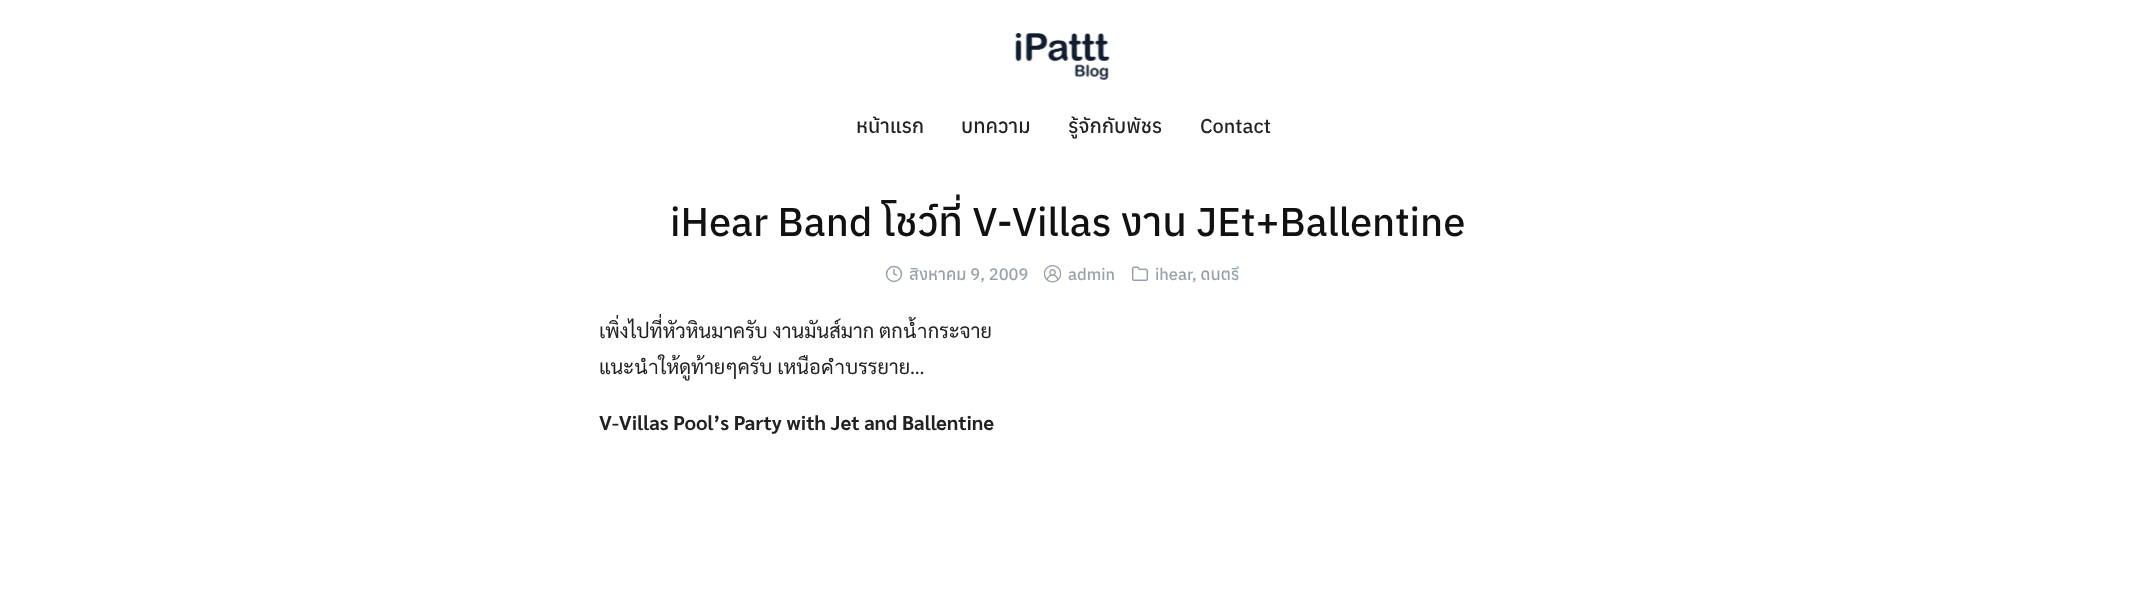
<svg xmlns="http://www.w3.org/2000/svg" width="2136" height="591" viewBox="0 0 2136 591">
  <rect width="100%" height="100%" fill="#fff"/>
  <image x="1015" y="33" width="95" height="47" href="img/1.png"/>
  <circle cx="894" cy="274" r="7.5" fill="none" stroke="#98a1a9" stroke-width="1.5"/>
  <path d="M894 269.5V274L896.5 275" fill="none" stroke="#98a1a9" stroke-width="1.5" stroke-linecap="round" stroke-linejoin="round"/>
  <image x="1044" y="265" width="17" height="18" href="img/2.png"/>
  <image x="1131" y="266" width="18" height="16" href="img/3.png"/>
  <g font-family="Anuphan" font-size="20" font-weight="500" fill="#222">
    <text x="856" y="133">หน้าแรก</text>
    <text x="961" y="133">บทความ</text>
    <text x="1068" y="133">รู้จักกับพัชร</text>
    <text x="1200" y="133">Contact</text>
  </g>
  <text x="670" y="236" font-family="Anuphan" font-size="40" font-weight="500" fill="#111">iHear Band โชว์ที่ V-Villas งาน JEt+Ballentine</text>
  <g font-family="Anuphan" font-size="16.5" font-weight="500" fill="#98a1a9">
    <text x="909" y="280">สิงหาคม 9, 2009</text>
    <text x="1068" y="280">admin</text>
    <text x="1155" y="280">ihear</text>
    <text x="1192" y="280">, ดนตรี</text>
  </g>
  <g font-family="Sarabun" font-size="20" fill="#222">
    <text x="599" y="338">เพิ่งไปที่หัวหินมาครับ งานมันส์มาก ตกน้ำกระจาย</text>
    <text x="599" y="374">แนะนำให้ดูท้ายๆครับ เหนือคำบรรยาย…</text>
  </g>
  <text x="599" y="430" font-family="Sarabun" font-size="20" font-weight="bold" fill="#222">V-Villas Pool’s Party with Jet and Ballentine</text>
</svg>
